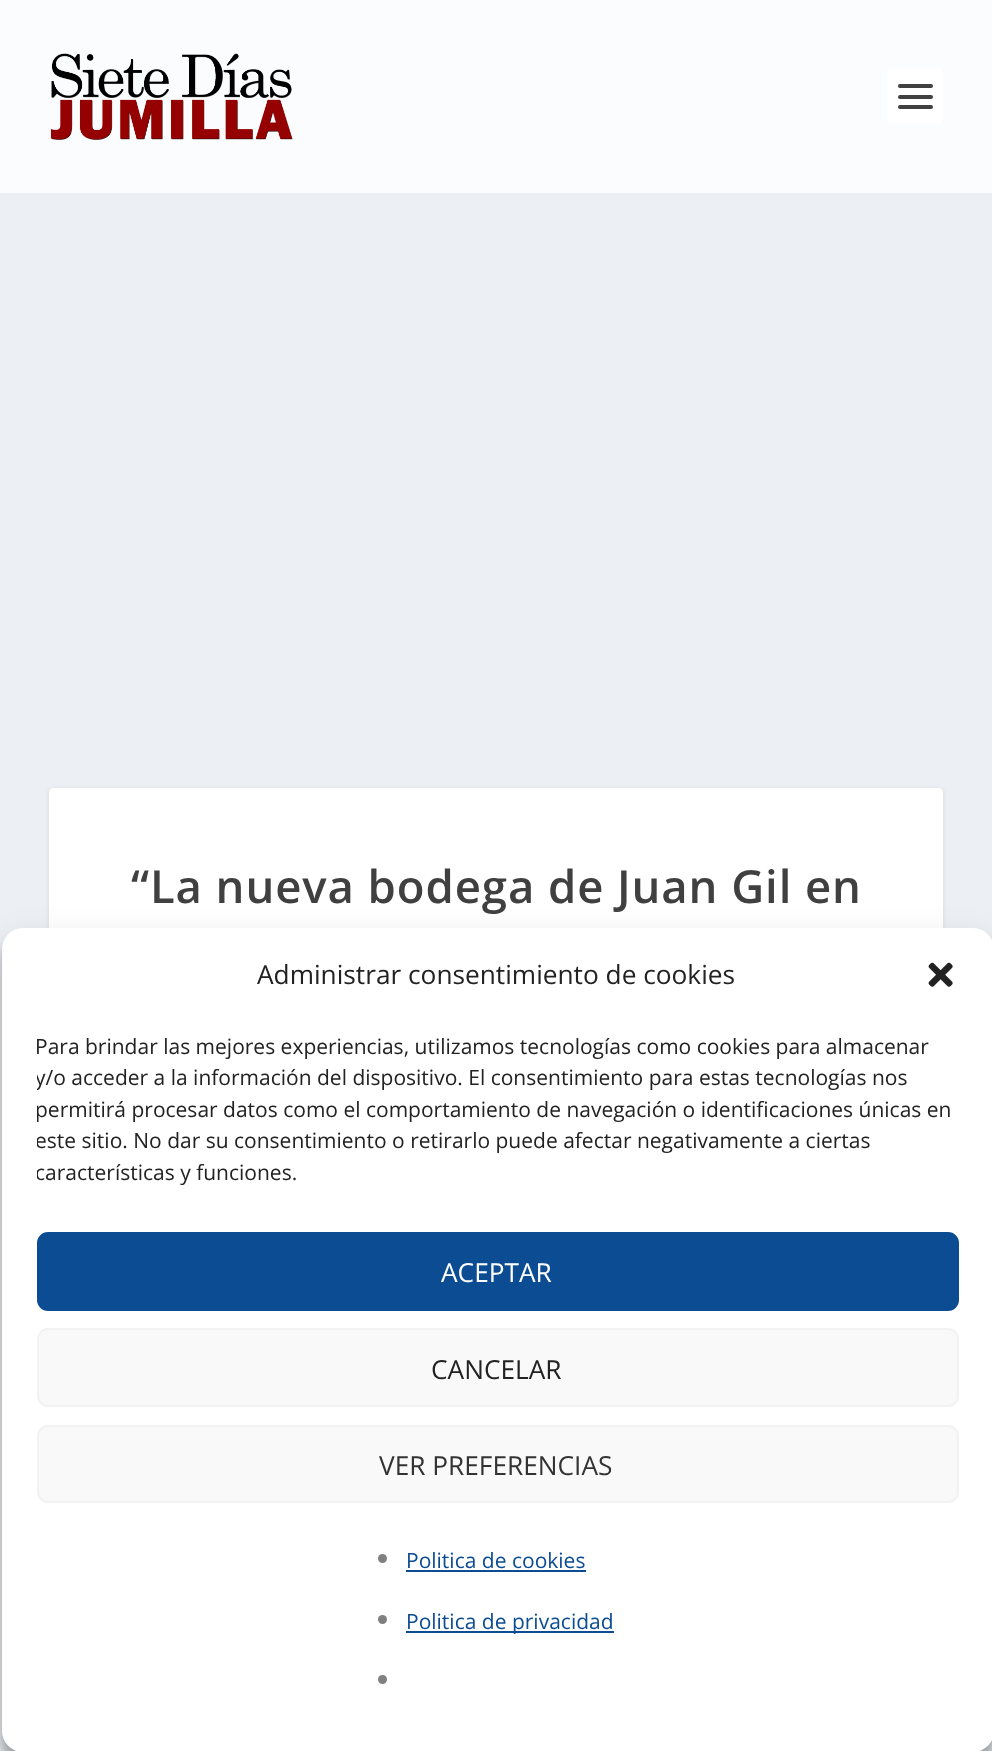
<svg xmlns="http://www.w3.org/2000/svg" width="992" height="1751" viewBox="0 0 992 1751">
  <defs>
    <clipPath id="clip1"><path d="M37 1031h922v166H37z"/></clipPath>
  </defs>
  <rect width="100%" height="100%" fill="#ecf0f5"/>
  <path d="M0 0h992v193H0z" fill="#fbfcfd"/>
  <image x="50" y="53" width="243" height="87" href="img/1.png"/>
  <rect x="887" y="68" width="56" height="56" rx="5" fill="#fff"/>
  <rect x="898" y="84" width="35" height="4" rx="2" fill="#404040"/>
  <rect x="898" y="95" width="35" height="4" rx="2" fill="#404040"/>
  <rect x="898" y="105" width="35" height="4" rx="2" fill="#404040"/>
  <rect x="49" y="789" width="894" height="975" rx="5" fill="#0000001a" filter="blur(2.5px)"/>
  <rect x="49" y="788" width="894" height="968" rx="5" fill="#fff"/>
  <rect x="2" y="938" width="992" height="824" rx="21" fill="#0000003b" filter="blur(5px)"/>
  <rect x="2" y="945" width="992" height="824" rx="21" fill="#00000030" filter="blur(17.5px)"/>
  <rect x="2" y="928" width="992" height="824" rx="21" fill="#fff"/>
  <image x="928" y="962" width="25" height="25" href="img/2.png"/>
  <rect x="38" y="1233" width="920" height="77" rx="10" fill="#0c4c93" stroke="#0c4c93" stroke-width="2"/>
  <rect x="38" y="1329" width="920" height="77" rx="10" fill="#f9f9f9" stroke="#f2f2f2" stroke-width="2"/>
  <rect x="38" y="1426" width="920" height="76" rx="10" fill="#f9f9f9" stroke="#f2f2f2" stroke-width="2"/>
  <circle cx="382.5" cy="1558.5" r="4.5" fill="#808080"/>
  <path d="M406 1570h180v2H406z" fill="#0c4c93"/>
  <circle cx="382.5" cy="1619.5" r="4.5" fill="#808080"/>
  <path d="M406 1631h208v2H406z" fill="#0c4c93"/>
  <circle cx="382.5" cy="1679.5" r="4.5" fill="#808080"/>
  <text x="131" y="903" font-family="Open Sans" font-size="45.5" font-weight="600" letter-spacing="0.9" fill="#404040">“La nueva bodega de Juan Gil en</text>
  <text x="257" y="984" font-family="Open Sans" font-size="26.25" fill="#222">Administrar consentimiento de cookies</text>
  <text x="35" y="1054" font-family="Open Sans" font-size="21" fill="#222">Para brindar las mejores experiencias, utilizamos tecnologías como cookies para almacenar</text>
  <g clip-path="url(#clip1)">
    <g font-family="Open Sans" font-size="21" fill="#222">
      <text x="35" y="1085">y/o acceder a la información del dispositivo. El consentimiento para estas tecnologías nos</text>
      <text x="35" y="1117">permitirá procesar datos como el comportamiento de navegación o identificaciones únicas en</text>
      <text x="35" y="1148">este sitio. No dar su consentimiento o retirarlo puede afectar negativamente a ciertas</text>
      <text x="35" y="1180">características y funciones.</text>
    </g>
  </g>
  <text x="441" y="1282" font-family="Open Sans" font-size="26.25" fill="#fff">ACEPTAR</text>
  <text x="431" y="1379" font-family="Open Sans" font-size="26.25" fill="#222">CANCELAR</text>
  <text x="379" y="1475" font-family="Open Sans" font-size="26.25" fill="#333">VER PREFERENCIAS</text>
  <g font-family="Open Sans" font-size="21" fill="#0c4c93">
    <text x="406" y="1568">Politica de cookies</text>
    <text x="406" y="1629">Politica de privacidad</text>
  </g>
</svg>
